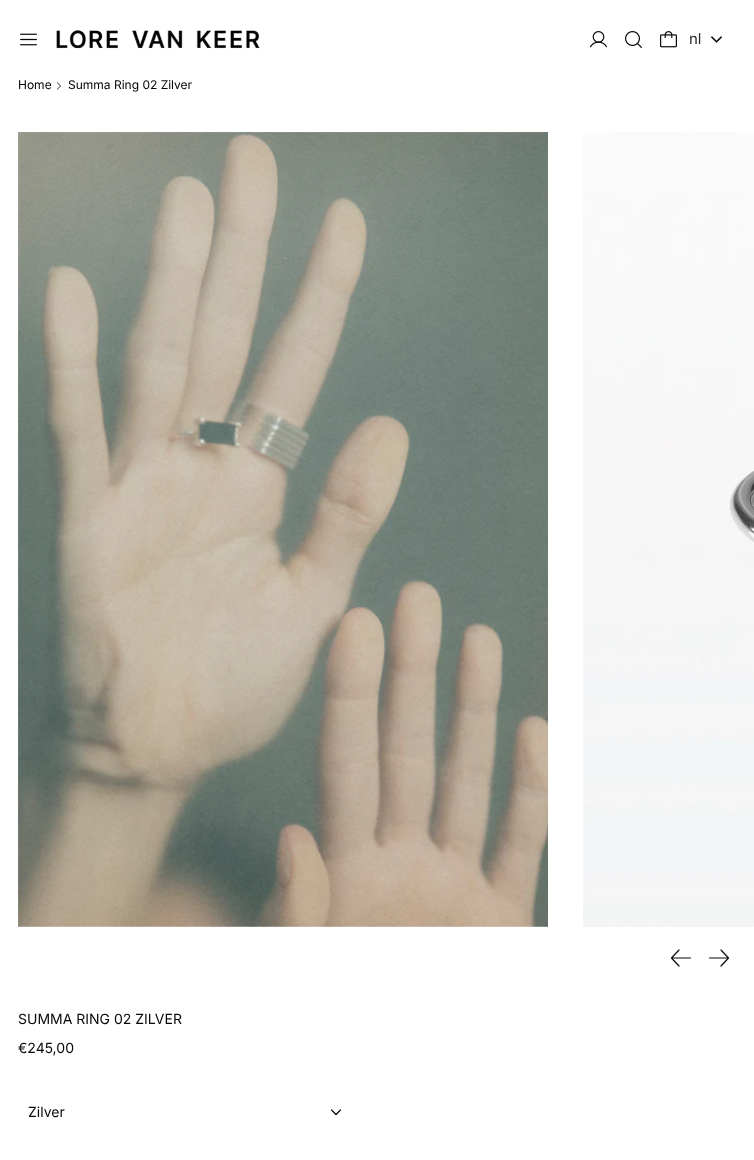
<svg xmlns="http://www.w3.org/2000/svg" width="754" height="1160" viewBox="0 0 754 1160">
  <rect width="100%" height="100%" fill="#fff"/>
  <image x="20" y="33" width="17" height="13" href="img/1.png"/>
  <image x="56" y="30" width="204" height="19" href="img/2.png"/>
  <image x="590" y="31" width="17" height="17" href="img/3.png"/>
  <image x="625" y="31" width="17" height="17" href="img/4.png"/>
  <image x="660" y="31" width="17" height="17" href="img/5.png"/>
  <image x="711" y="36" width="11" height="7" href="img/6.png"/>
  <image x="56" y="82" width="5" height="8" href="img/7.png"/>
  <image x="18" y="132" width="530" height="795" href="img/8.png"/>
  <image x="583" y="132" width="171" height="795" href="img/9.png"/>
  <path d="M690.5 958H671.5M679 950L671.5 958L679 966M709.5 958H728.5M721 950L728.5 958L721 966" fill="none" stroke="#080808" stroke-width="1.2" stroke-linecap="round" stroke-linejoin="round"/>
  <path d="M340.5 1110L336 1114.5L331.5 1110" fill="none" stroke="#080808" stroke-width="1.2" stroke-linecap="round" stroke-linejoin="round"/>
  <text x="689" y="44" font-family="Inter" font-size="15" fill="#252a2b">nl</text>
  <g font-family="Inter" font-size="12" fill="#000">
    <text x="18" y="89">Home</text>
    <text x="68" y="89">Summa Ring 02 Zilver</text>
  </g>
  <g font-family="Inter" font-size="14" fill="#080808">
    <text x="18" y="1024">SUMMA RING 02 ZILVER</text>
    <text x="18" y="1053">€245,00</text>
    <text x="28" y="1117">Zilver</text>
  </g>
</svg>
